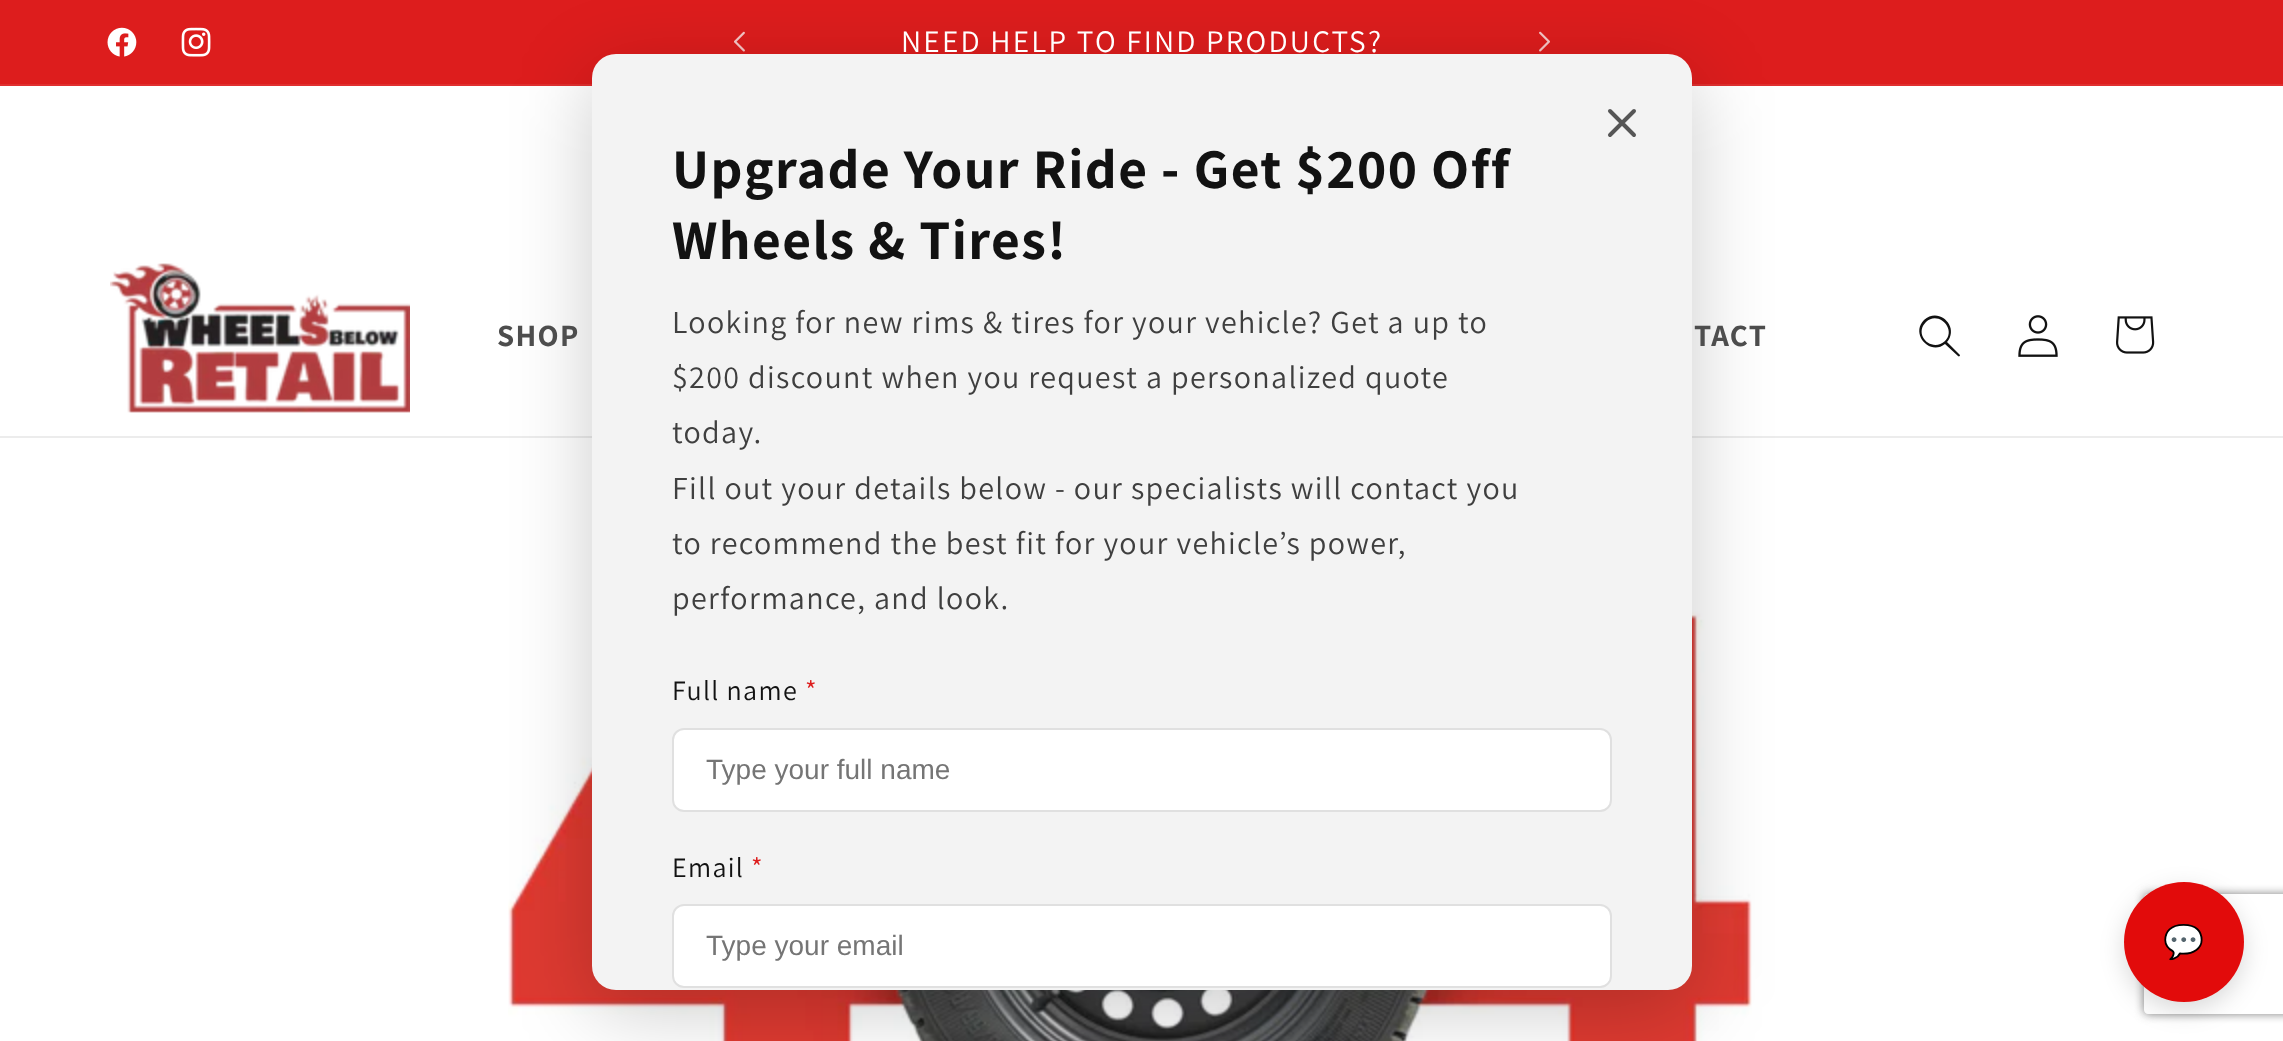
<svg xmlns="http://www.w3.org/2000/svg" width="2283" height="1041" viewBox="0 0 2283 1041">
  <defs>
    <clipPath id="clip1"><path d="M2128 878H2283V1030H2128ZM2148 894H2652C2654 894 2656 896 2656 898V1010C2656 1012 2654 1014 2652 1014H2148C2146 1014 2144 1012 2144 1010V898C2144 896 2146 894 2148 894Z" clip-rule="evenodd"/></clipPath>
  </defs>
  <rect width="100%" height="100%" fill="#fff"/>
  <path d="M0 0h2283v84H0z" fill="#dd1d1d"/>
  <path d="M0 84h2283v2H0z" fill="#e02f2f"/>
  <image x="107" y="27" width="30" height="30" href="img/1.png"/>
  <image x="181" y="27" width="30" height="30" href="img/2.png"/>
  <image x="734" y="31" width="11" height="21" href="img/3.png"/>
  <image x="1539" y="31" width="11" height="21" href="img/4.png"/>
  <path d="M0 436h2283v2H0z" fill="#ececec"/>
  <image x="508" y="606" width="1244" height="435" href="img/8.png"/>
  <rect x="592" y="74" width="1100" height="936" rx="24" fill="#00000033" filter="blur(40px)"/>
  <rect x="592" y="54" width="1100" height="936" rx="24" fill="#f3f3f3"/>
  <path d="M1634 111L1610 135M1610 111L1634 135" fill="none" stroke="#565656" stroke-width="4" stroke-linecap="round" stroke-linejoin="round"/>
  <rect x="673" y="729" width="938" height="82" rx="11" fill="#fff" stroke="#e0e0e0" stroke-width="2"/>
  <rect x="673" y="905" width="938" height="82" rx="11" fill="#fff" stroke="#e0e0e0" stroke-width="2"/>
  <image x="110" y="263" width="300" height="150" href="img/5.png"/>
  <path d="M1945 341C1932 353 1913 335 1926 322C1938 310 1957 329 1945 341M1945 344C1930 356 1910 334 1924 320C1939 306 1960 327 1947 342L1960 355C1960 356 1959 357 1958 356Z" fill="#121212" fill-rule="evenodd"/>
  <image x="2018" y="315" width="40" height="42" href="img/6.png"/>
  <image x="2116" y="316" width="39" height="38" href="img/7.png"/>
  <g clip-path="url(#clip1)">
    <rect x="2144" y="894" width="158" height="120" rx="4" fill="#808080" filter="blur(5px)"/>
  </g>
  <rect x="2124" y="890" width="120" height="120" rx="60" fill="#00000026" filter="blur(12px)"/>
  <circle cx="2184" cy="942" r="60" fill="#e20b0b"/>
  <text x="901" y="52" font-family="Assistant" font-size="31.25" letter-spacing="2.2" fill="#fff">NEED HELP TO FIND PRODUCTS?</text>
  <g font-family="Assistant" font-size="56" font-weight="bold" letter-spacing="1.45" fill="#121212">
    <text x="672" y="188">Upgrade Your Ride - Get $200 Off</text>
    <text x="672" y="259">Wheels &amp; Tires!</text>
  </g>
  <g font-family="Assistant" font-size="32" letter-spacing="1.32" fill="#3f3f3f">
    <text x="672" y="333">Looking for new rims &amp; tires for your vehicle? Get a up to</text>
    <text x="672" y="388">$200 discount when you request a personalized quote</text>
    <text x="672" y="443">today.</text>
    <text x="672" y="499">Fill out your details below - our specialists will contact you</text>
    <text x="672" y="554">to recommend the best fit for your vehicle’s power,</text>
    <text x="672" y="609">performance, and look.</text>
  </g>
  <text x="672" y="700" font-family="Assistant" font-size="28" letter-spacing="1.32" fill="#121212">Full name</text>
  <text x="805" y="700" font-family="Assistant" font-size="28" letter-spacing="1.32" fill="#dd1d1d">*</text>
  <text x="706" y="779" font-family="Liberation Sans" font-size="28" fill="#757575">Type your full name</text>
  <text x="672" y="877" font-family="Assistant" font-size="28" letter-spacing="1.32" fill="#121212">Email</text>
  <text x="751" y="877" font-family="Assistant" font-size="28" letter-spacing="1.32" fill="#dd1d1d">*</text>
  <text x="706" y="955" font-family="Liberation Sans" font-size="28" fill="#757575">Type your email</text>
  <g font-family="Assistant" font-size="31" font-weight="bold" letter-spacing="1.32" fill="#4d4d4d">
    <text x="497" y="346">SHOP</text>
    <text x="1694" y="346">TACT</text>
  </g>
  <text x="2163" y="953" font-family="Noto Color Emoji" font-size="33" fill="#000">💬</text>
</svg>
